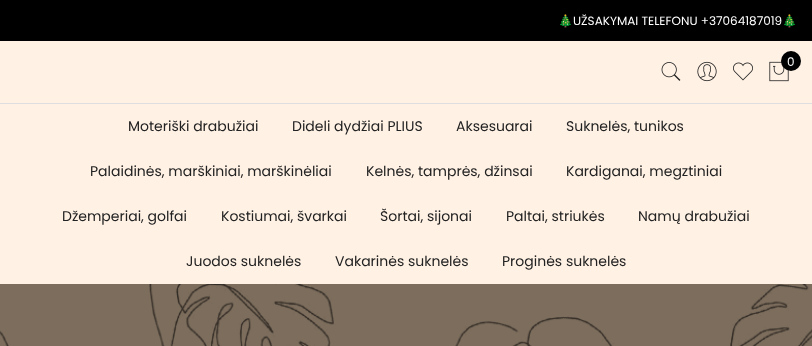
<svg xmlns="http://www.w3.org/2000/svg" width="812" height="346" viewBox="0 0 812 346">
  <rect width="100%" height="100%" fill="#fff1e4"/>
  <path d="M0 0h812v41H0z" fill="#000"/>
  <image x="661" y="62" width="20" height="19" href="img/1.png"/>
  <image x="697" y="61" width="20" height="21" href="img/2.png"/>
  <image x="733" y="62" width="20" height="19" href="img/3.png"/>
  <image x="769" y="61" width="20" height="21" href="img/4.png"/>
  <circle cx="791" cy="61" r="10" fill="#000"/>
  <path d="M0 103h812v1H0z" fill="#dedede"/>
  <image x="0" y="284" width="812" height="62" href="img/5.png"/>
  <text x="558" y="25" font-family="Noto Color Emoji" font-size="12" fill="#fff">🎄</text>
  <text x="573" y="25" font-family="Poppins" font-size="12" fill="#fff">UŽSAKYMAI TELEFONU +37064187019</text>
  <text x="782" y="25" font-family="Noto Color Emoji" font-size="12" fill="#fff">🎄</text>
  <text x="787" y="66" font-family="Poppins" font-size="12" fill="#fff">0</text>
  <g font-family="Poppins" font-size="14" fill="#222">
    <text x="128" y="131">Moteriški drabužiai</text>
    <text x="292" y="131">Dideli dydžiai PLIUS</text>
    <text x="456" y="131">Aksesuarai</text>
    <text x="566" y="131">Suknelės, tunikos</text>
    <text x="90" y="176">Palaidinės, marškiniai, marškinėliai</text>
    <text x="366" y="176">Kelnės, tamprės, džinsai</text>
    <text x="566" y="176">Kardiganai, megztiniai</text>
    <text x="62" y="221">Džemperiai, golfai</text>
    <text x="221" y="221">Kostiumai, švarkai</text>
    <text x="380" y="221">Šortai, sijonai</text>
    <text x="506" y="221">Paltai, striukės</text>
    <text x="638" y="221">Namų drabužiai</text>
    <text x="186" y="266">Juodos suknelės</text>
    <text x="335" y="266">Vakarinės suknelės</text>
    <text x="502" y="266">Proginės suknelės</text>
  </g>
</svg>
